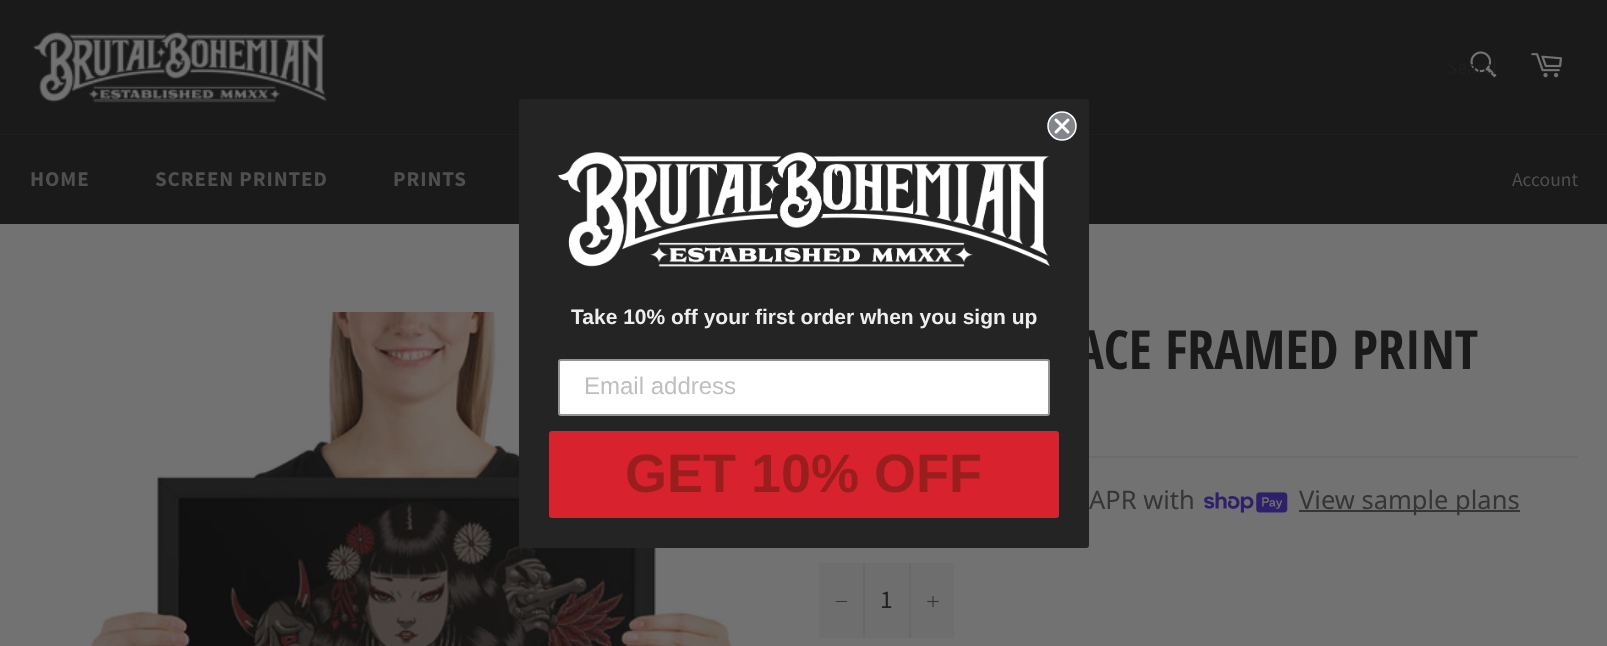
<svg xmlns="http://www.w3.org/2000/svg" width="1607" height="646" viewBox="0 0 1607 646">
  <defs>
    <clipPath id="clip1"><path d="M1448 54h48v26H1448z"/></clipPath>
  </defs>
  <rect width="100%" height="100%" fill="#1a1a1a"/>
  <image x="32" y="31" width="296" height="72" href="img/1.png"/>
  <image x="1470" y="51" width="27" height="27" href="img/2.png"/>
  <image x="1531" y="53" width="31" height="25" href="img/3.png"/>
  <path d="M0 134h1607v1H0z" fill="#1f1f1f"/>
  <path d="M0 224h1607v422H0z" fill="#727272"/>
  <image x="90" y="312" width="642" height="334" href="img/5.png"/>
  <path d="M1089 456h489v2H1089z" fill="#6c6c6c"/>
  <image x="1204" y="492" width="84" height="21" href="img/6.png"/>
  <path d="M1299 510h221v2H1299z" fill="#353535"/>
  <path d="M819 563h135v75H819z" fill="#6e6e6e"/>
  <path d="M863 563h2v75H863z" fill="#686868"/>
  <path d="M836 601h11v1H836z" fill="#353535"/>
  <path d="M909 563h2v75H909z" fill="#686868"/>
  <image x="927" y="596" width="12" height="12" href="img/7.png"/>
  <g clip-path="url(#clip1)">
    <text x="1447" y="74" font-family="Source Sans Pro" font-size="19.5" fill="#202020">Search</text>
  </g>
  <g font-family="Source Sans Pro" font-size="21" font-weight="bold" letter-spacing="0.9" fill="#4f4f4f">
    <text x="30" y="186">HOME</text>
    <text x="155" y="186">SCREEN PRINTED</text>
    <text x="393" y="186">PRINTS</text>
  </g>
  <text x="1512" y="186" font-family="Source Sans Pro" font-size="19.5" fill="#4f4f4f">Account</text>
  <text x="1075" y="369" font-family="Open Sans Condensed" font-size="54" font-weight="bold" fill="#1a1a1a">ACE FRAMED PRINT</text>
  <text x="1089" y="509" font-family="Noto Sans" font-size="25.5" fill="#353535">APR with</text>
  <rect x="519" y="99" width="570" height="449" rx="3" fill="#242424"/>
  <circle cx="1062" cy="126" r="14" fill="#82868b" stroke="#fff" stroke-width="1.5"/>
  <path d="M1056 120L1068 132M1056 132L1068 120Z" fill="none" stroke="#fff" stroke-width="3" stroke-linecap="round" stroke-linejoin="round"/>
  <rect x="549" y="431" width="510" height="87" rx="3" fill="#d8232f"/>
  <text x="625" y="492" font-family="Liberation Sans" font-size="54" font-weight="bold" fill="#991f1f">GET 10% OFF</text>
  <rect x="559" y="360" width="490" height="55" rx="2" fill="#fff" stroke="#949596" stroke-width="2"/>
  <text x="584" y="394" font-family="Liberation Sans" font-size="24" fill="#bfbfc0">Email address</text>
  <text x="571" y="324" font-family="Liberation Sans" font-size="21" font-weight="bold" fill="#eee">Take 10% off your first order when you sign up</text>
  <image x="558" y="152" width="492" height="115" href="img/4.png"/>
  <text x="1299" y="509" font-family="Noto Sans" font-size="25.5" fill="#353535">View sample plans</text>
  <text x="880" y="608" font-family="Source Sans Pro" font-size="25.5" fill="#202020">1</text>
</svg>
